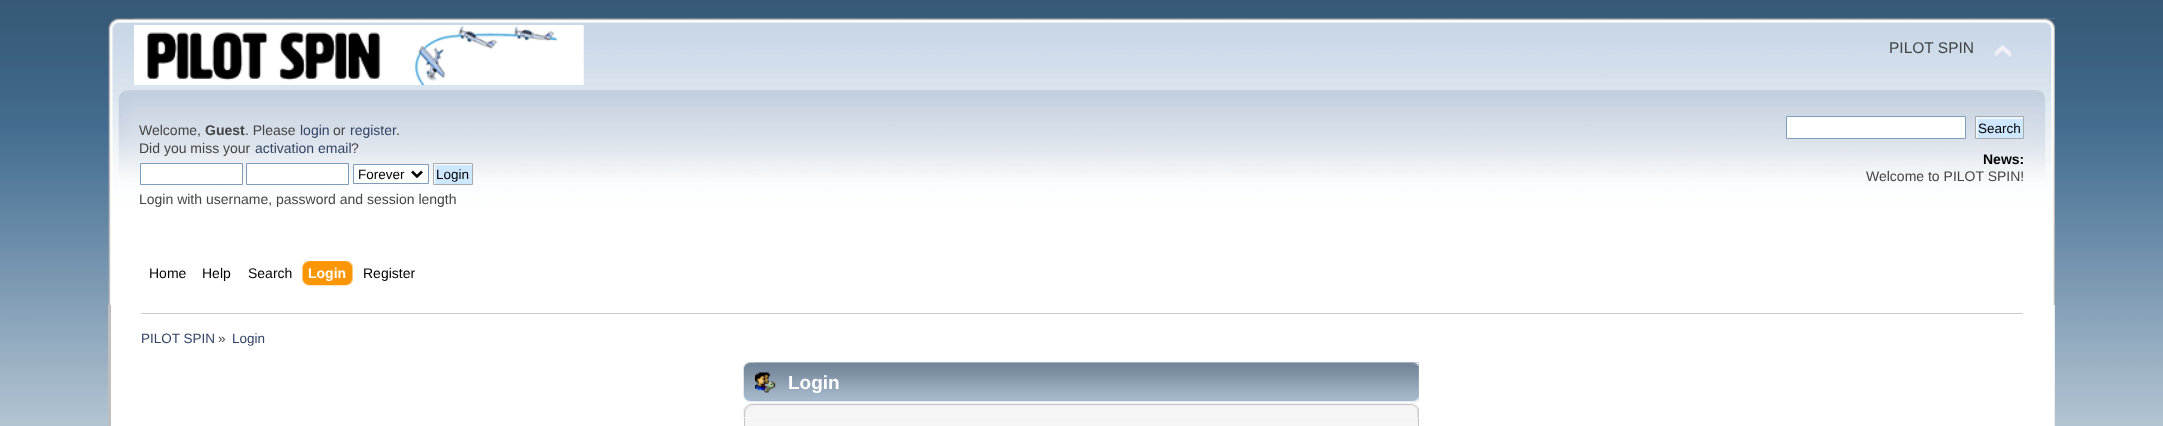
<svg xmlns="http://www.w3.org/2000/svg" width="2163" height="426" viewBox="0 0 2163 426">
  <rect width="100%" height="100%" fill="#fff"/>
  <image x="0" y="0" width="2163" height="426" href="img/1.png"/>
  <image x="108" y="18" width="1947" height="287" href="img/2.png"/>
  <image x="133" y="18" width="1922" height="287" href="img/3.png"/>
  <image x="134" y="25" width="450" height="60" href="img/4.png"/>
  <image x="1994" y="44" width="18" height="15" href="img/5.png"/>
  <path d="M140.5 163.5h102v21H140.5z" fill="#fff" stroke="#7f9db9"/>
  <path d="M246.5 163.5h102v21H246.5z" fill="#fff" stroke="#7f9db9"/>
  <path d="M353.5 164.5h75v19H353.5z" fill="#fff" stroke="#7f9db9"/>
  <path d="M412 171.5L417 176.5L422 171.5" fill="none" stroke="#000" stroke-width="2.5"/>
  <image x="434" y="164" width="38" height="20" href="img/6.png"/>
  <path d="M433.5 163.5h39v21H433.5z" fill="none" stroke="#aaa"/>
  <path d="M1786.5 116.5h179v22H1786.5z" fill="#fff" stroke="#7f9db9"/>
  <path d="M1976 117h47v21H1976z" fill="#cde7ff"/>
  <image x="1976" y="117" width="47" height="21" href="img/7.png"/>
  <path d="M1975.5 116.5h48v22H1975.5z" fill="none" stroke="#aaa"/>
  <image x="308" y="261" width="45" height="25" href="img/8.png"/>
  <image x="302" y="261" width="45" height="25" href="img/9.png"/>
  <path d="M111 305h1943v121H111z" fill="#fff"/>
  <path d="M108 305h3v121H108z" fill="#bebebe"/>
  <path d="M2054 305h1v121H2054z" fill="#f0f0f0"/>
  <path d="M141 313h1882v1H141z" fill="#ccc"/>
  <image x="743" y="362" width="676" height="40" href="img/10.png"/>
  <image x="755" y="362" width="664" height="40" href="img/11.png"/>
  <image x="755" y="372" width="21" height="21" href="img/12.png"/>
  <image x="743" y="403" width="676" height="15" href="img/13.png"/>
  <image x="1411" y="403" width="8" height="15" href="img/14.png"/>
  <path d="M744 418h675v8H744z" fill="#f5f5f5"/>
  <path d="M1418 418h1v8H1418z" fill="#c5c5c5"/>
  <path d="M744 418h1v8H744z" fill="#c5c5c5"/>
  <text x="1889" y="53" font-family="Liberation Sans" font-size="15.5" fill="#444">PILOT SPIN</text>
  <text x="139" y="135" font-family="Liberation Sans" font-size="14" fill="#444">Welcome,</text>
  <text x="205" y="135" font-family="Liberation Sans" font-size="14" font-weight="bold" fill="#444">Guest</text>
  <text x="245" y="135" font-family="Liberation Sans" font-size="14" fill="#444">. Please</text>
  <text x="300" y="135" font-family="Liberation Sans" font-size="14" fill="#346">login</text>
  <text x="333" y="135" font-family="Liberation Sans" font-size="14" fill="#444">or</text>
  <text x="350" y="135" font-family="Liberation Sans" font-size="14" fill="#346">register</text>
  <g font-family="Liberation Sans" font-size="14" fill="#444">
    <text x="396" y="135">.</text>
    <text x="139" y="153">Did you miss your</text>
  </g>
  <text x="255" y="153" font-family="Liberation Sans" font-size="14" fill="#346">activation email</text>
  <text x="351" y="153" font-family="Liberation Sans" font-size="14" fill="#444">?</text>
  <g font-family="Liberation Sans" font-size="13.5" fill="#000">
    <text x="358" y="179">Forever</text>
    <text x="436" y="179">Login</text>
  </g>
  <text x="139" y="204" font-family="Liberation Sans" font-size="14" fill="#444">Login with username, password and session length</text>
  <text x="1978" y="133" font-family="Liberation Sans" font-size="13.5" fill="#000">Search</text>
  <text x="1983" y="164" font-family="Liberation Sans" font-size="14" font-weight="bold" fill="#000">News:</text>
  <text x="1866" y="181" font-family="Liberation Sans" font-size="14" fill="#444">Welcome to PILOT SPIN!</text>
  <g font-family="Liberation Sans" font-size="14" fill="#000">
    <text x="149" y="278">Home</text>
    <text x="202" y="278">Help</text>
    <text x="248" y="278">Search</text>
  </g>
  <text x="308" y="278" font-family="Liberation Sans" font-size="14" font-weight="bold" fill="#fff">Login</text>
  <text x="363" y="278" font-family="Liberation Sans" font-size="14" fill="#000">Register</text>
  <text x="141" y="343" font-family="Liberation Sans" font-size="13.5" fill="#346">PILOT SPIN</text>
  <text x="218" y="343" font-family="Liberation Sans" font-size="13.5" fill="#444">»</text>
  <text x="232" y="343" font-family="Liberation Sans" font-size="13.5" fill="#346">Login</text>
  <text x="788" y="389" font-family="Liberation Sans" font-size="19" font-weight="bold" fill="#fff">Login</text>
</svg>
